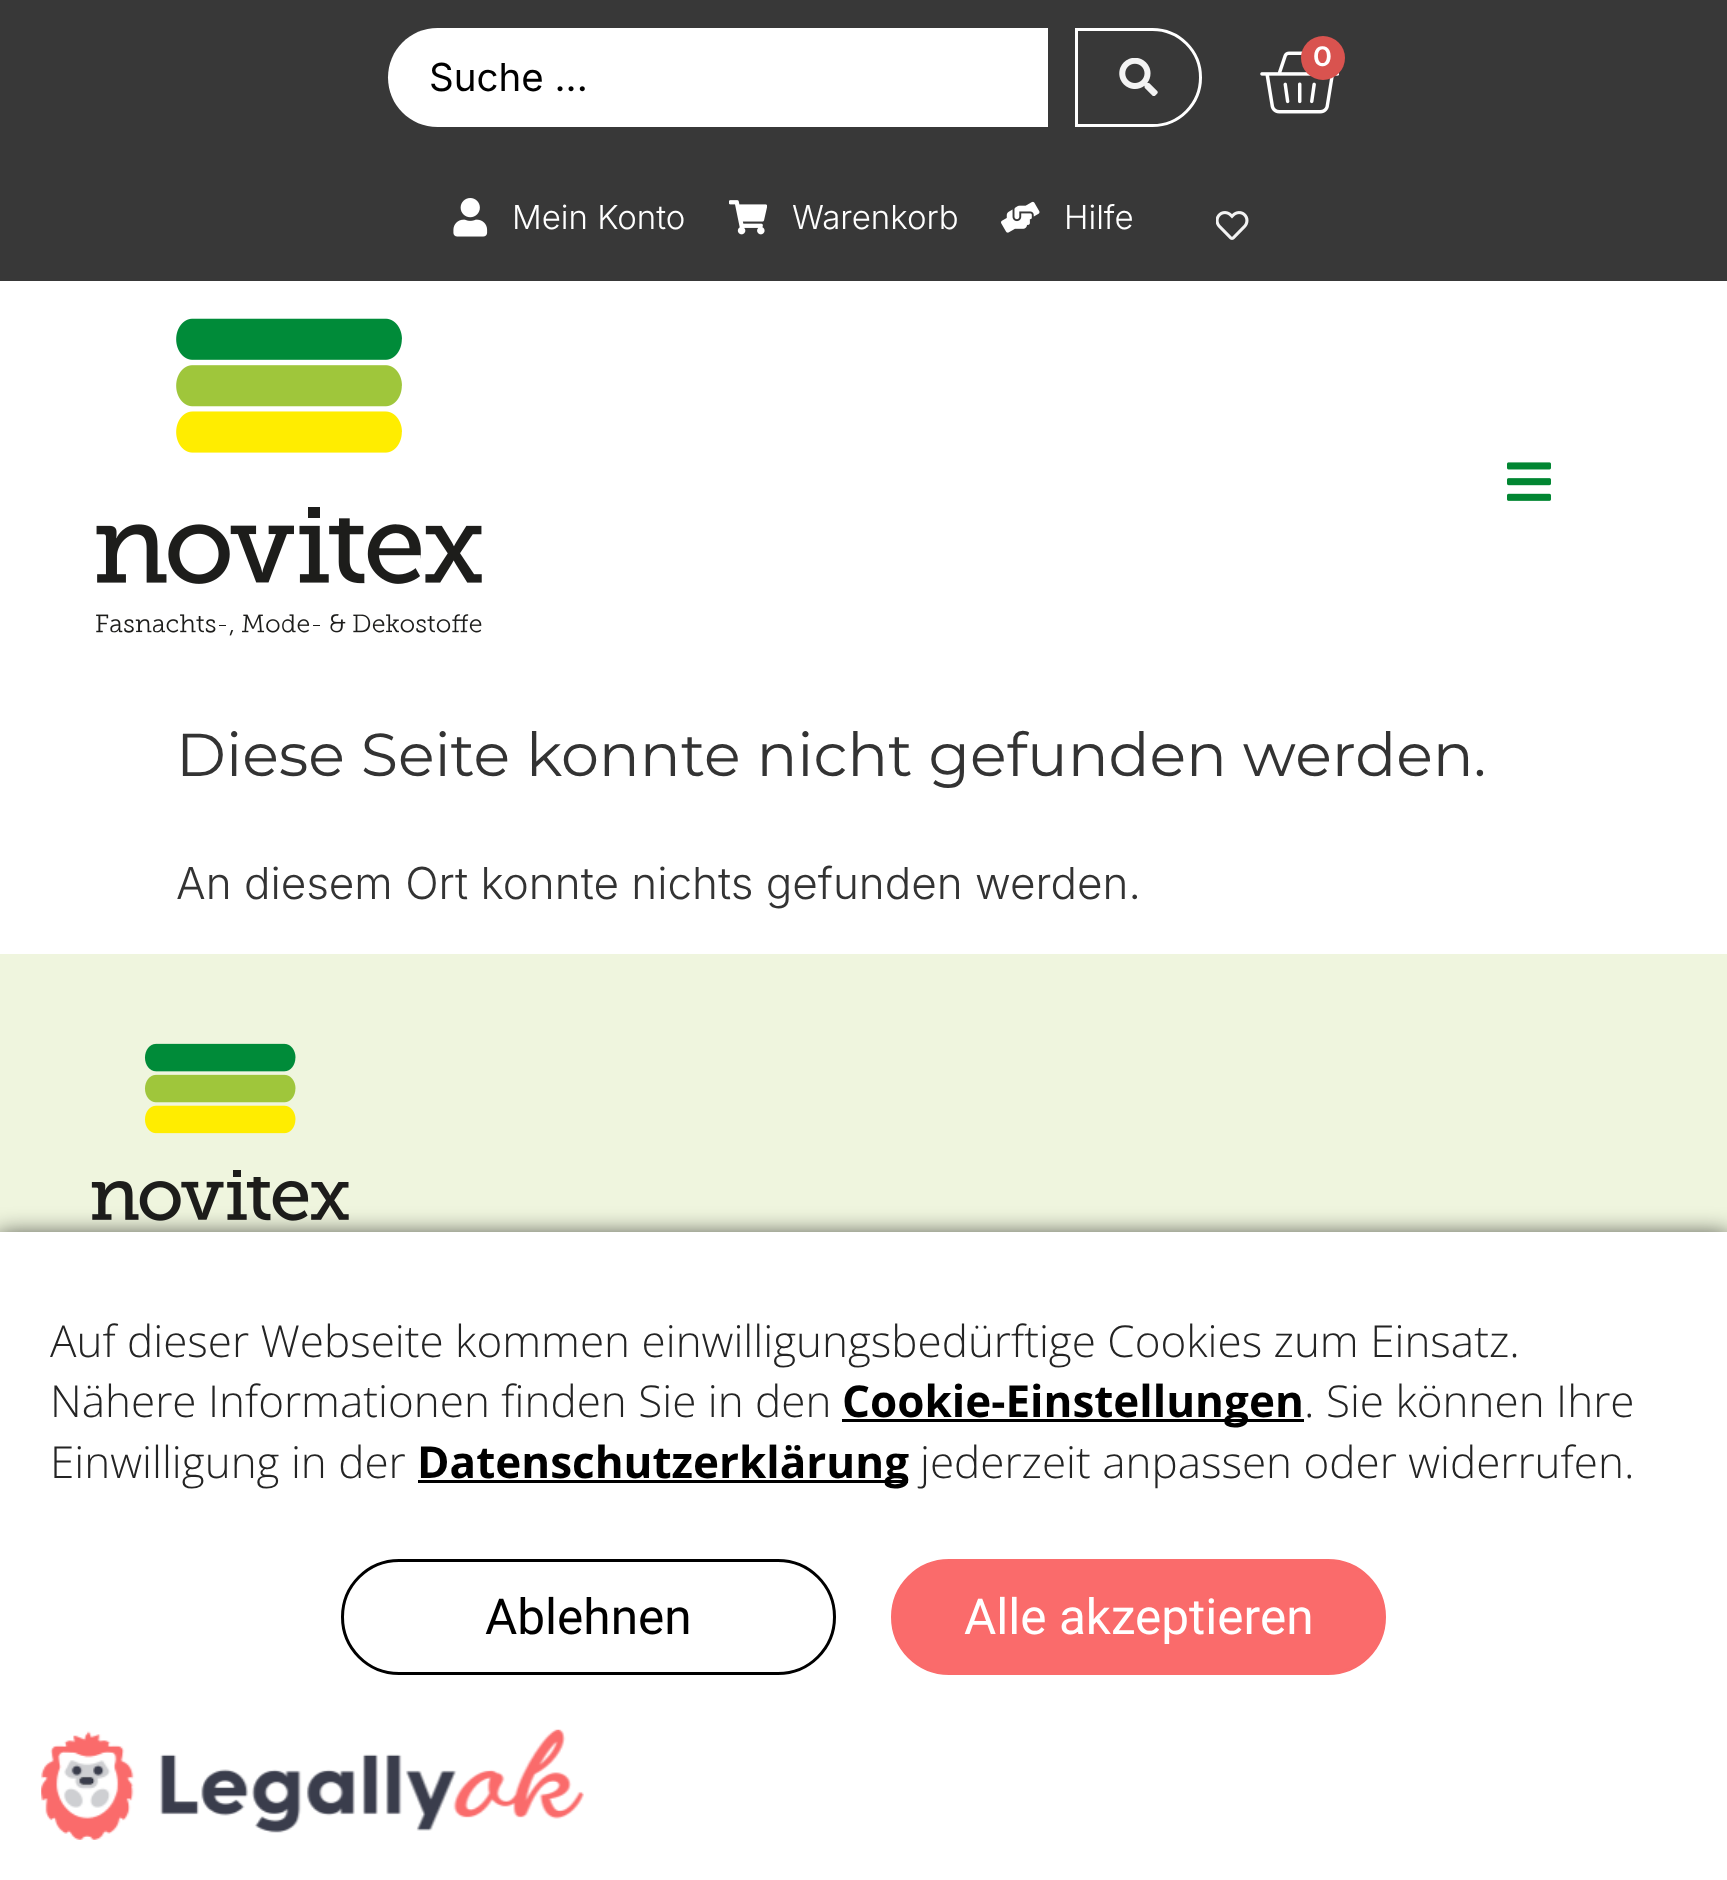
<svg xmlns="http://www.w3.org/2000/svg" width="1727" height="1880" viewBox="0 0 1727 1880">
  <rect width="100%" height="100%" fill="#fff"/>
  <path d="M0 0h1727v281H0z" fill="#383838"/>
  <image x="1260" y="51" width="79" height="63" href="img/1.png"/>
  <circle cx="1323" cy="58" r="22" fill="#d9534f"/>
  <path d="M437.5 28H1048V127H437.5C410 127 388 105 388 77.5C388 50 410 28 437.5 28Z" fill="#fff"/>
  <path d="M1076.5 29.5H1152.5C1179 29.5 1200.5 51 1200.5 77.5C1200.5 104 1179 125.5 1152.5 125.5H1076.5Z" fill="none" stroke="#fff" stroke-width="3"/>
  <image x="1119" y="58" width="39" height="38" href="img/2.png"/>
  <image x="453" y="198" width="35" height="39" href="img/3.png"/>
  <image x="729" y="200" width="38" height="35" href="img/4.png"/>
  <image x="1001" y="201" width="39" height="32" href="img/5.png"/>
  <image x="1216" y="211" width="33" height="29" href="img/6.png"/>
  <image x="96" y="318" width="386" height="318" href="img/7.png"/>
  <image x="1507" y="462" width="44" height="39" href="img/8.png"/>
  <path d="M0 954h1727v278H0z" fill="#eff5de"/>
  <image x="91" y="1043" width="258" height="178" href="img/9.png"/>
  <path d="M-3 1235h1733v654H-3z" fill="#000000bf" filter="blur(12.5px)"/>
  <path d="M0 1232h1727v648H0z" fill="#fff"/>
  <path d="M842 1419h462v3H842z" fill="#000"/>
  <path d="M418 1480h490v3H418z" fill="#000"/>
  <rect x="342.5" y="1560.5" width="492" height="113" rx="56.5" fill="none" stroke="#000" stroke-width="3"/>
  <rect x="892.5" y="1560.5" width="492" height="113" rx="56.5" fill="#fa6b6b" stroke="#fa6b6b" stroke-width="3"/>
  <image x="41" y="1729" width="543" height="111" href="img/10.png"/>
  <text x="1313" y="66" font-family="Montserrat" font-size="28" font-weight="600" fill="#fff">0</text>
  <text x="429" y="91" font-family="Inter" font-size="38.5" fill="#000">Suche ...</text>
  <g font-family="Inter" font-size="33" font-weight="300" fill="#fff">
    <text x="512" y="229">Mein Konto</text>
    <text x="792" y="229">Warenkorb</text>
    <text x="1064" y="229">Hilfe</text>
  </g>
  <text x="176" y="776" font-family="Montserrat" font-size="60.5" fill="#333">Diese Seite konnte nicht gefunden werden.</text>
  <text x="176" y="899" font-family="Inter" font-size="44" font-weight="300" fill="#333">An diesem Ort konnte nichts gefunden werden.</text>
  <g font-family="Open Sans" font-size="44" font-weight="300" fill="#242424">
    <text x="50" y="1357">Auf dieser Webseite kommen einwilligungsbedürftige Cookies zum Einsatz.</text>
    <text x="50" y="1417">Nähere Informationen finden Sie in den</text>
  </g>
  <text x="842" y="1417" font-family="Open Sans" font-size="44" font-weight="bold" fill="#000">Cookie-Einstellungen</text>
  <g font-family="Open Sans" font-size="44" font-weight="300" fill="#242424">
    <text x="1304" y="1417">. Sie können Ihre</text>
    <text x="50" y="1478">Einwilligung in der</text>
  </g>
  <text x="417" y="1478" font-family="Open Sans" font-size="44" font-weight="bold" fill="#000">Datenschutzerklärung</text>
  <text x="920" y="1478" font-family="Open Sans" font-size="44" font-weight="300" fill="#242424">jederzeit anpassen oder widerrufen.</text>
  <text x="485" y="1634" font-family="Roboto" font-size="49.5" fill="#000">Ablehnen</text>
  <text x="964" y="1634" font-family="Roboto" font-size="49.5" fill="#fff">Alle akzeptieren</text>
</svg>
